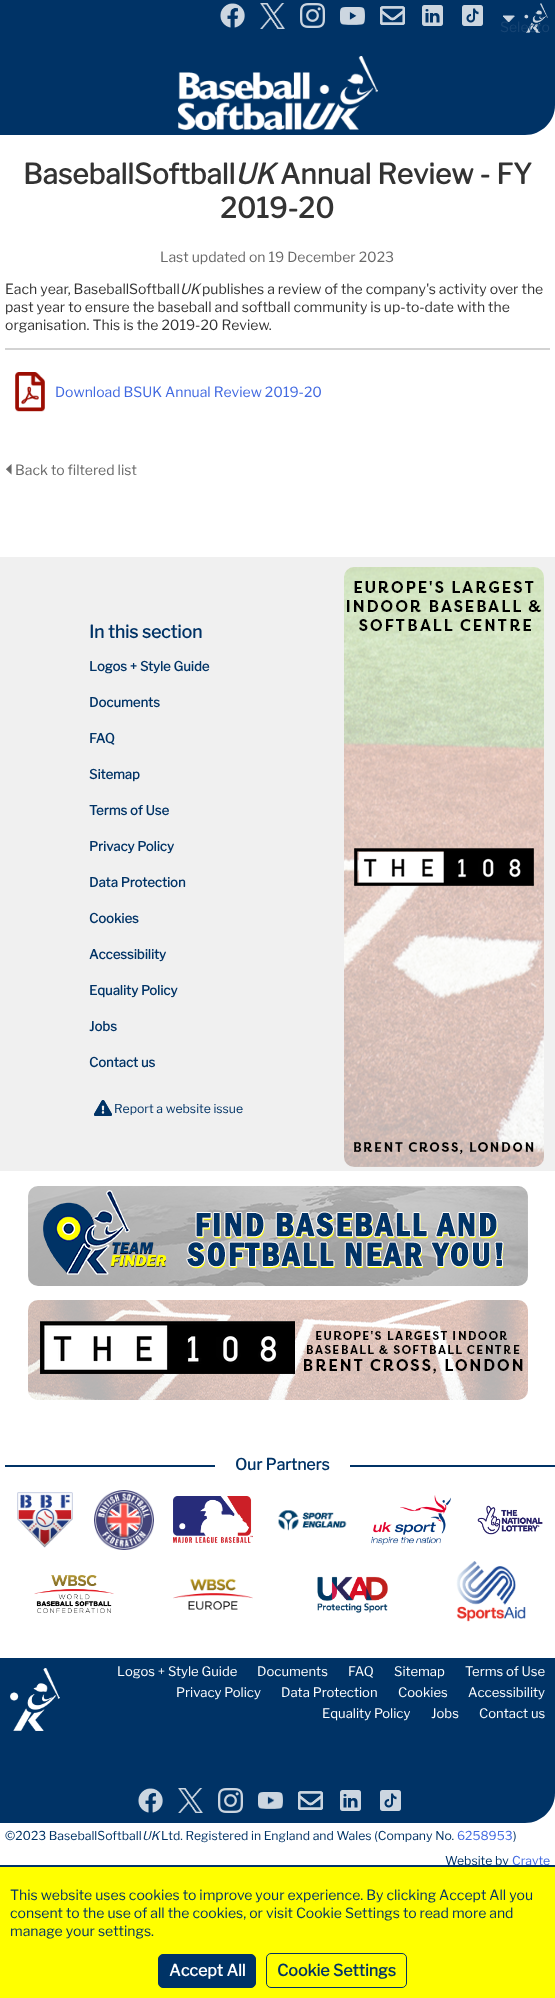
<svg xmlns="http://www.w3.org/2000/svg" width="555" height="1998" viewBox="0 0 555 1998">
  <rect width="100%" height="100%" fill="#f0f0f0"/>
  <path d="M525 105h30v30H525z" fill="#fff"/>
  <path d="M0 0H555V105C555 121.5 541.5 135 525 135H0Z" fill="#036"/>
  <image x="220" y="3" width="25" height="25" href="img/1.png"/>
  <image x="260" y="3" width="25" height="26" href="img/2.png"/>
  <image x="300" y="3" width="25" height="25" href="img/3.png"/>
  <image x="340" y="7" width="25" height="18" href="img/4.png"/>
  <image x="380" y="6" width="25" height="19" href="img/5.png"/>
  <image x="422" y="5" width="21" height="21" href="img/6.png"/>
  <image x="462" y="5" width="21" height="21" href="img/7.png"/>
  <image x="503" y="3" width="45" height="30" href="img/8.png"/>
  <image x="178" y="56" width="200" height="74" href="img/9.png"/>
  <path d="M0 135h555v422H0z" fill="#fff"/>
  <path d="M5 348h545v2H5z" fill="#d3d3d3"/>
  <image x="15" y="372" width="30" height="40" href="img/10.png"/>
  <image x="6" y="464" width="6" height="11" href="img/11.png"/>
  <image x="94" y="1100" width="18" height="16" href="img/12.png"/>
  <image x="344" y="567" width="200" height="600" href="img/13.png"/>
  <path d="M0 1171h555v487H0z" fill="#fff"/>
  <image x="28" y="1186" width="500" height="100" href="img/14.png"/>
  <image x="28" y="1300" width="500" height="100" href="img/15.png"/>
  <path d="M5 1465h210v2H5z" fill="#036"/>
  <path d="M350 1465h205v2H350z" fill="#036"/>
  <image x="17" y="1492" width="56" height="56" href="img/16.png"/>
  <image x="94" y="1490" width="60" height="60" href="img/17.png"/>
  <image x="173" y="1496" width="80" height="47" href="img/18.png"/>
  <image x="278" y="1510" width="69" height="21" href="img/19.png"/>
  <image x="371" y="1495" width="80" height="50" href="img/20.png"/>
  <image x="477" y="1505" width="66" height="30" href="img/21.png"/>
  <image x="34" y="1575" width="80" height="38" href="img/22.png"/>
  <image x="173" y="1578" width="80" height="32" href="img/23.png"/>
  <image x="317" y="1576" width="71" height="37" href="img/24.png"/>
  <image x="456" y="1561" width="70" height="61" href="img/25.png"/>
  <path d="M0 1793h555v72H0z" fill="#fff"/>
  <path d="M0 1658H555V1793C555 1809.5 541.5 1823 525 1823H0Z" fill="#036"/>
  <image x="10" y="1668" width="50" height="63" href="img/26.png"/>
  <image x="138" y="1788" width="25" height="25" href="img/27.png"/>
  <image x="178" y="1788" width="25" height="25" href="img/28.png"/>
  <image x="218" y="1788" width="25" height="25" href="img/3.png"/>
  <image x="258" y="1792" width="25" height="17" href="img/29.png"/>
  <image x="298" y="1791" width="25" height="19" href="img/5.png"/>
  <image x="340" y="1790" width="21" height="21" href="img/6.png"/>
  <image x="380" y="1790" width="21" height="21" href="img/7.png"/>
  <path d="M0 1867h555v131H0z" fill="#ff0"/>
  <rect x="158.5" y="1954.5" width="97" height="33" rx="4.5" fill="#036" stroke="#036"/>
  <rect x="266.5" y="1953.5" width="140" height="34" rx="4.5" fill="none" stroke="#036"/>
  <text x="500" y="32" font-family="Libre Franklin" font-size="14" fill="#174574">Selecto</text>
  <text x="23" y="184" font-family="Libre Franklin" font-size="28" font-weight="bold" fill="#333">BaseballSoftball</text>
  <text x="235" y="184" font-family="Libre Franklin" font-size="28" font-weight="bold" font-style="italic" fill="#333">UK</text>
  <g font-family="Libre Franklin" font-size="28" font-weight="bold" fill="#333">
    <text x="280" y="184">Annual Review - FY</text>
    <text x="220" y="218">2019-20</text>
  </g>
  <text x="160" y="262" font-family="Libre Franklin" font-size="14" fill="#696969">Last updated on 19 December 2023</text>
  <text x="5" y="294" font-family="Libre Franklin" font-size="14" fill="#333">Each year, BaseballSoftball</text>
  <text x="180" y="294" font-family="Libre Franklin" font-size="14" font-style="italic" fill="#333">UK</text>
  <g font-family="Libre Franklin" font-size="14" fill="#333">
    <text x="202" y="294">publishes a review of the company's activity over the</text>
    <text x="5" y="312">past year to ensure the baseball and softball community is up-to-date with the</text>
    <text x="5" y="330">organisation. This is the 2019-20 Review.</text>
  </g>
  <text x="55" y="397" font-family="Libre Franklin" font-size="14" fill="#4169e1">Download BSUK Annual Review 2019-20</text>
  <text x="15" y="475" font-family="Libre Franklin" font-size="14" fill="#696969">Back to filtered list</text>
  <text x="89" y="638" font-family="Libre Franklin" font-size="17.5" font-weight="bold" fill="#036">In this section</text>
  <g font-family="Libre Franklin" font-size="13.1" font-weight="bold" fill="#036">
    <text x="89" y="671">Logos + Style Guide</text>
    <text x="89" y="707">Documents</text>
    <text x="89" y="743">FAQ</text>
    <text x="89" y="779">Sitemap</text>
    <text x="89" y="815">Terms of Use</text>
    <text x="89" y="851">Privacy Policy</text>
    <text x="89" y="887">Data Protection</text>
    <text x="89" y="923">Cookies</text>
    <text x="89" y="959">Accessibility</text>
    <text x="89" y="995">Equality Policy</text>
    <text x="89" y="1031">Jobs</text>
    <text x="89" y="1067">Contact us</text>
  </g>
  <text x="114" y="1113" font-family="Libre Franklin" font-size="12.25" fill="#036">Report a website issue</text>
  <text x="235" y="1470" font-family="Libre Franklin" font-size="15.75" font-weight="bold" fill="#036">Our Partners</text>
  <g font-family="Libre Franklin" font-size="13.1" fill="#fff">
    <text x="117" y="1676">Logos + Style Guide</text>
    <text x="257" y="1676">Documents</text>
    <text x="348" y="1676">FAQ</text>
    <text x="394" y="1676">Sitemap</text>
    <text x="465" y="1676">Terms of Use</text>
    <text x="176" y="1697">Privacy Policy</text>
    <text x="281" y="1697">Data Protection</text>
    <text x="398" y="1697">Cookies</text>
    <text x="468" y="1697">Accessibility</text>
    <text x="322" y="1718">Equality Policy</text>
    <text x="431" y="1718">Jobs</text>
    <text x="479" y="1718">Contact us</text>
  </g>
  <text x="5" y="1840" font-family="Libre Franklin" font-size="12.25" fill="#036">©2023 BaseballSoftball</text>
  <text x="142" y="1840" font-family="Libre Franklin" font-size="12.25" font-style="italic" fill="#036">UK</text>
  <text x="161" y="1840" font-family="Libre Franklin" font-size="12.25" fill="#036">Ltd. Registered in England and Wales (Company No.</text>
  <text x="457" y="1840" font-family="Libre Franklin" font-size="12.25" fill="#4169e1">6258953</text>
  <g font-family="Libre Franklin" font-size="12.25" fill="#036">
    <text x="513" y="1840">)</text>
    <text x="445" y="1865">Website by</text>
  </g>
  <text x="512" y="1865" font-family="Libre Franklin" font-size="12.25" fill="#4169e1">Crayte</text>
  <path d="M0 1865h555v2H0z" fill="#036"/>
  <g font-family="Libre Franklin" font-size="14" fill="#036">
    <text x="10" y="1900">This website uses cookies to improve your experience. By clicking Accept All you</text>
    <text x="10" y="1918">consent to the use of all the cookies, or visit Cookie Settings to read more and</text>
    <text x="10" y="1936">manage your settings.</text>
  </g>
  <text x="169" y="1976" font-family="Libre Franklin" font-size="16" font-weight="bold" fill="#fff">Accept All</text>
  <text x="277" y="1976" font-family="Libre Franklin" font-size="16" font-weight="bold" fill="#036">Cookie Settings</text>
</svg>
